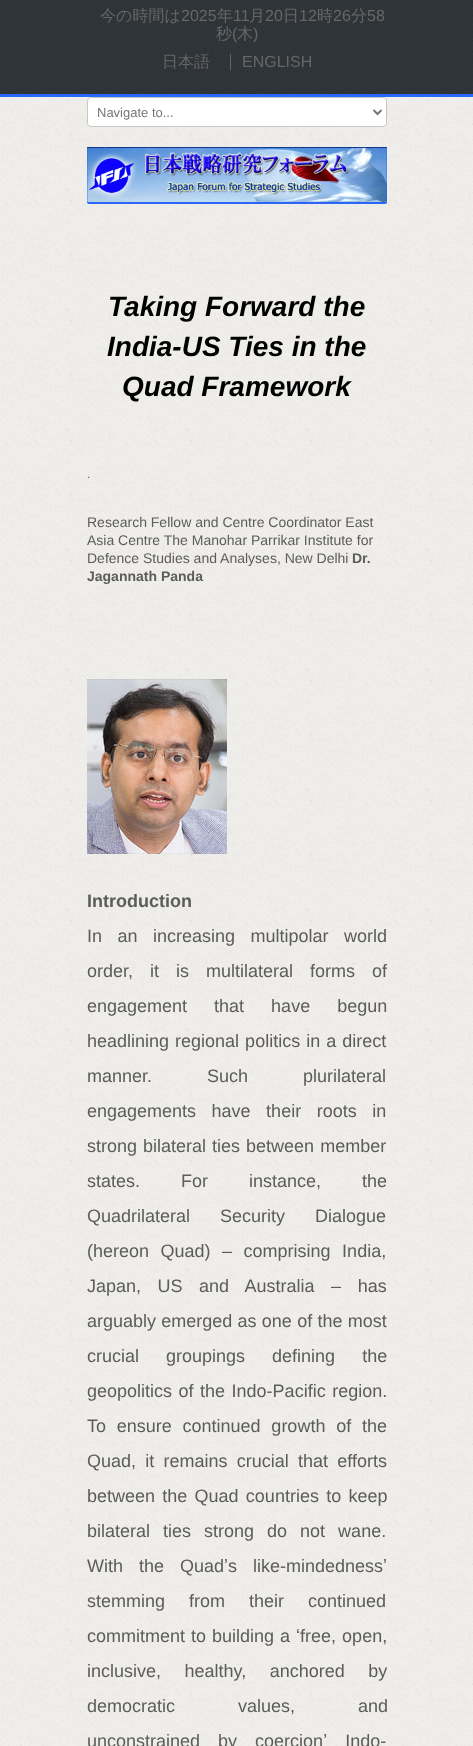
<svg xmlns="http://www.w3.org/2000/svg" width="473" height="1746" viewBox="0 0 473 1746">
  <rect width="100%" height="100%" fill="#fff"/>
  <image x="0" y="97" width="473" height="1649" href="img/1.png"/>
  <path d="M0 0h473v1H0z" fill="#2e3438"/>
  <image x="0" y="1" width="473" height="93" href="img/2.png"/>
  <path d="M0 94h473v3H0z" fill="#2769fe"/>
  <path d="M230 54h1v16H230z" fill="#666"/>
  <rect x="87.5" y="97.5" width="299" height="29" rx="3.5" fill="#fff" stroke="#c8c8c8"/>
  <path d="M373.5 110L377.5 114L381.5 110" fill="none" stroke="#777" stroke-width="2"/>
  <image x="87" y="147" width="300" height="57" href="img/3.png"/>
  <image x="87" y="679" width="140" height="175" href="img/4.png"/>
  <text x="100" y="21" font-family="WenQuanYi Zen Hei" font-size="16" font-weight="500" fill="#666">今の時間は</text>
  <text x="181" y="21" font-family="Liberation Sans" font-size="16" fill="#666">2025</text>
  <text x="217" y="21" font-family="WenQuanYi Zen Hei" font-size="16" font-weight="500" fill="#666">年</text>
  <text x="233" y="21" font-family="Liberation Sans" font-size="16" fill="#666">11</text>
  <text x="249" y="21" font-family="WenQuanYi Zen Hei" font-size="16" font-weight="500" fill="#666">月</text>
  <text x="265" y="21" font-family="Liberation Sans" font-size="16" fill="#666">20</text>
  <text x="283" y="21" font-family="WenQuanYi Zen Hei" font-size="16" font-weight="500" fill="#666">日</text>
  <text x="299" y="21" font-family="Liberation Sans" font-size="16" fill="#666">12</text>
  <text x="317" y="21" font-family="WenQuanYi Zen Hei" font-size="16" font-weight="500" fill="#666">時</text>
  <text x="333" y="21" font-family="Liberation Sans" font-size="16" fill="#666">26</text>
  <text x="351" y="21" font-family="WenQuanYi Zen Hei" font-size="16" font-weight="500" fill="#666">分</text>
  <text x="367" y="21" font-family="Liberation Sans" font-size="16" fill="#666">58</text>
  <text x="216" y="39" font-family="WenQuanYi Zen Hei" font-size="16" font-weight="500" fill="#666">秒</text>
  <text x="232" y="39" font-family="Liberation Sans" font-size="16" fill="#666">(</text>
  <text x="237" y="39" font-family="WenQuanYi Zen Hei" font-size="16" font-weight="500" fill="#666">木</text>
  <text x="253" y="39" font-family="Liberation Sans" font-size="16" fill="#666">)</text>
  <text x="162" y="67" font-family="WenQuanYi Zen Hei" font-size="16" font-weight="500" fill="#666">日本語</text>
  <text x="242" y="67" font-family="Liberation Sans" font-size="16" fill="#666">ENGLISH</text>
  <text x="97" y="117" font-family="Liberation Sans" font-size="13" fill="#777">Navigate to...</text>
  <g font-family="Liberation Sans" font-size="28" font-weight="bold" font-style="italic" fill="#000">
    <text x="108" y="316">Taking Forward the</text>
    <text x="107" y="356">India-US Ties in the</text>
    <text x="122" y="396">Quad Framework</text>
  </g>
  <text x="87" y="478" font-family="Liberation Sans" font-size="12" fill="#5c5c5c">.</text>
  <g font-family="Liberation Sans" font-size="14" fill="#5c5c5c">
    <text x="87" y="527">Research Fellow and Centre Coordinator East</text>
    <text x="87" y="545">Asia Centre The Manohar Parrikar Institute for</text>
    <text x="87" y="563">Defence Studies and Analyses, New Delhi</text>
  </g>
  <g font-family="Liberation Sans" font-size="14" font-weight="bold" fill="#5c5c5c">
    <text x="352" y="563">Dr.</text>
    <text x="87" y="581">Jagannath Panda</text>
  </g>
  <text x="87" y="907" font-family="Liberation Sans" font-size="18" font-weight="bold" fill="#5c5c5c">Introduction</text>
  <g font-family="Liberation Sans" font-size="18" fill="#5c5c5c">
    <text x="87" y="942" word-spacing="10.5">In an increasing multipolar world</text>
    <text x="87" y="977" word-spacing="12">order, it is multilateral forms of</text>
    <text x="87" y="1012" word-spacing="22">engagement that have begun</text>
    <text x="87" y="1047" word-spacing="1">headlining regional politics in a direct</text>
    <text x="87" y="1082" word-spacing="50">manner. Such plurilateral</text>
    <text x="87" y="1117" word-spacing="10.5">engagements have their roots in</text>
    <text x="87" y="1152" word-spacing="1">strong bilateral ties between member</text>
    <text x="87" y="1187" word-spacing="36">states. For instance, the</text>
    <text x="87" y="1222" word-spacing="25">Quadrilateral Security Dialogue</text>
    <text x="87" y="1257" word-spacing="6.5">(hereon Quad) – comprising India,</text>
    <text x="87" y="1292" word-spacing="11.5">Japan, US and Australia – has</text>
    <text x="87" y="1327" word-spacing="0.25">arguably emerged as one of the most</text>
    <text x="87" y="1362" word-spacing="22">crucial groupings defining the</text>
    <text x="87" y="1397" word-spacing="1.5">geopolitics of the Indo-Pacific region.</text>
    <text x="87" y="1432" word-spacing="5.75">To ensure continued growth of the</text>
    <text x="87" y="1467" word-spacing="4.25">Quad, it remains crucial that efforts</text>
    <text x="87" y="1502" word-spacing="2.25">between the Quad countries to keep</text>
    <text x="87" y="1537" word-spacing="8">bilateral ties strong do not wane.</text>
    <text x="87" y="1572" word-spacing="11">With the Quadʼs like-mindednessʼ</text>
    <text x="87" y="1607" word-spacing="19">stemming from their continued</text>
    <text x="87" y="1642" word-spacing="1">commitment to building a ʻfree, open,</text>
    <text x="87" y="1677" word-spacing="18.5">inclusive, healthy, anchored by</text>
    <text x="87" y="1712" word-spacing="58">democratic values, and</text>
    <text x="87" y="1747" word-spacing="13">unconstrained by coercionʼ Indo-</text>
  </g>
</svg>
